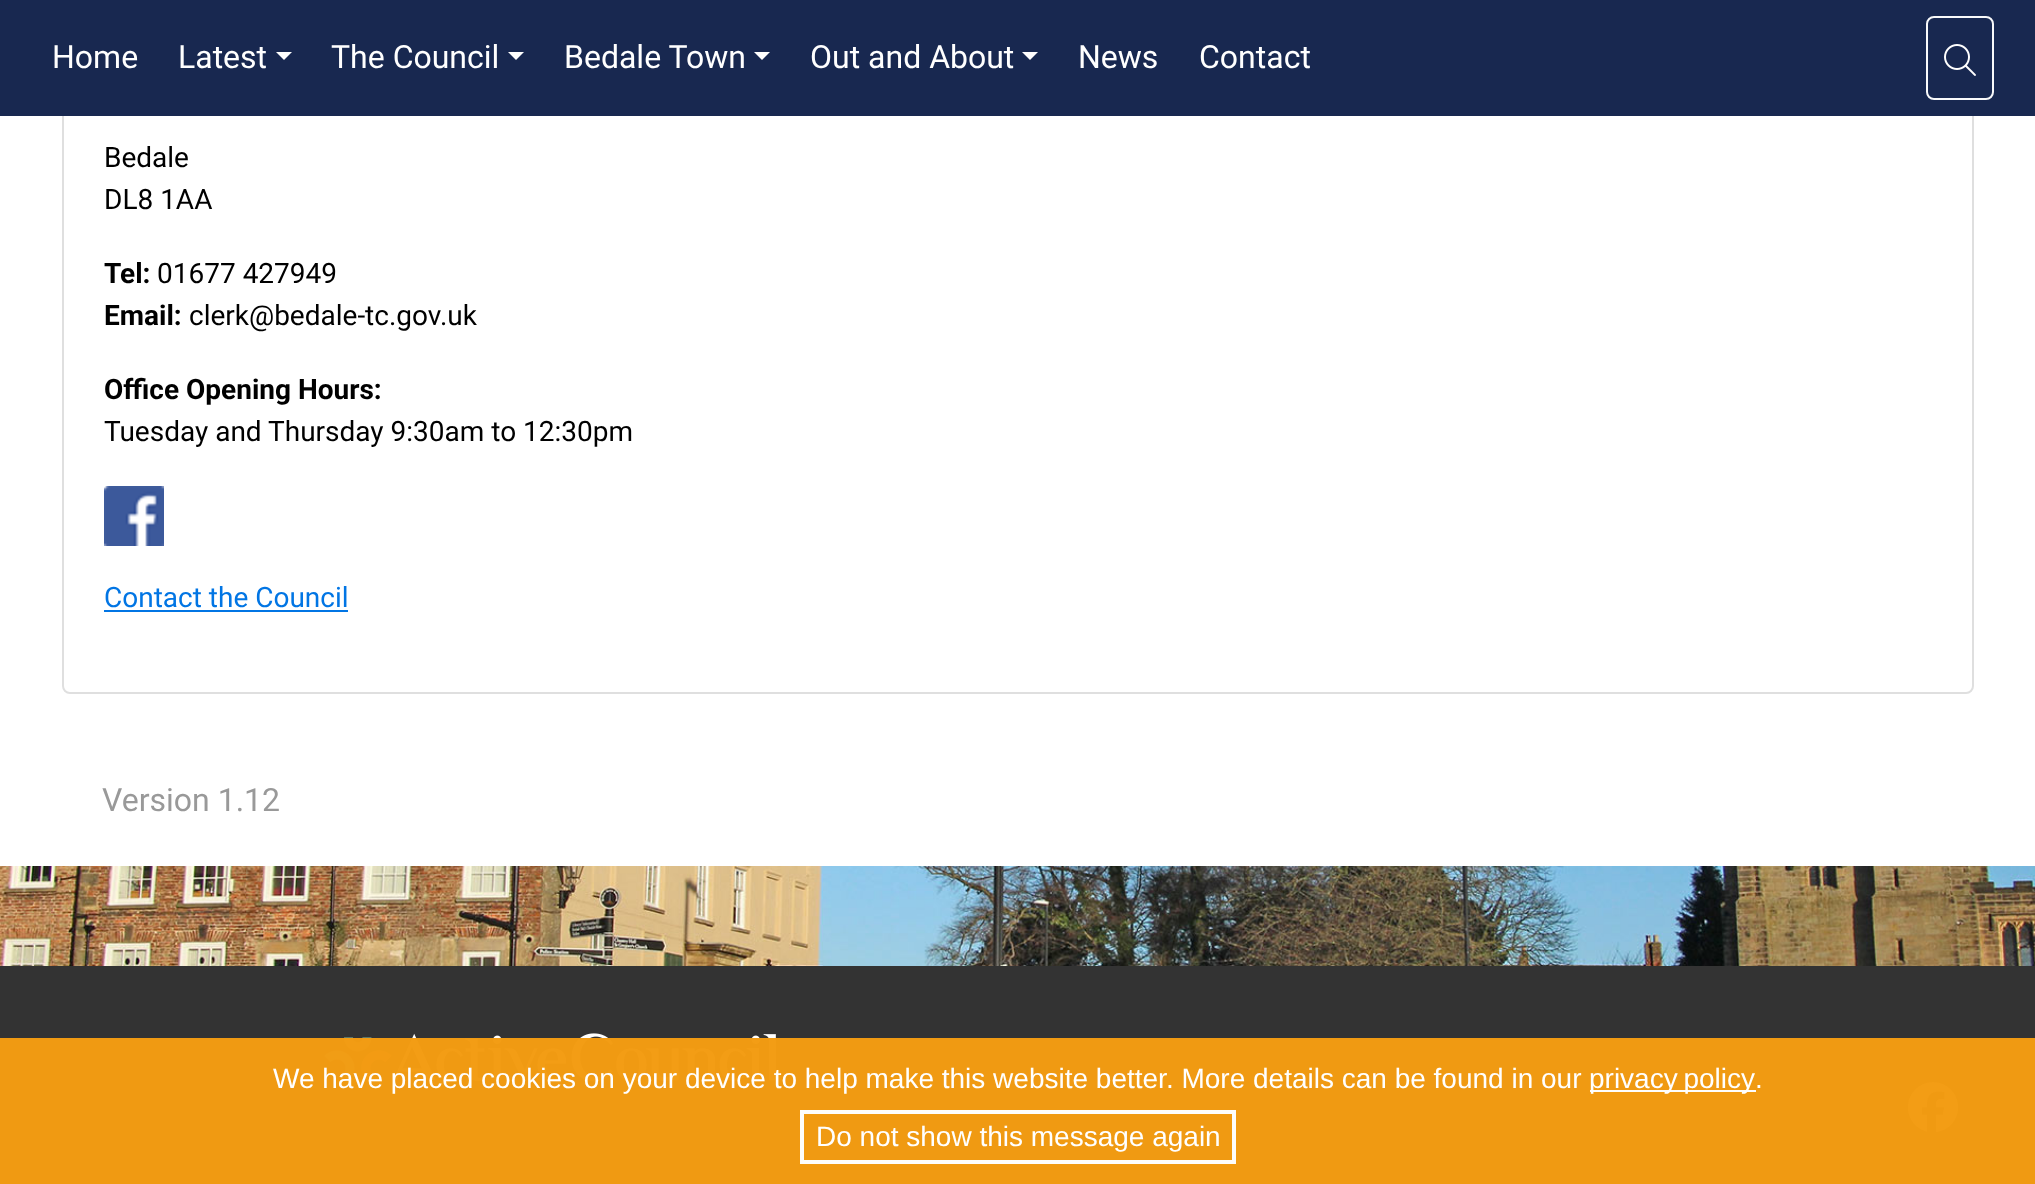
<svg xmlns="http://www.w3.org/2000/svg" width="2035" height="1184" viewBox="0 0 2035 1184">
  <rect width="100%" height="100%" fill="#fff"/>
  <image x="0" y="866" width="2035" height="100" href="img/1.png"/>
  <rect x="63" y="-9" width="1910" height="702" rx="7" fill="none" stroke="#dfdfdf" stroke-width="2"/>
  <path d="M0 0h2035v116H0z" fill="#182850"/>
  <path d="M276 52H292L284 60Z" fill="#fff"/>
  <path d="M508 52H524L516 60Z" fill="#fff"/>
  <path d="M754 52H770L762 60Z" fill="#fff"/>
  <path d="M1022 52H1038L1030 60Z" fill="#fff"/>
  <rect x="1927" y="17" width="66" height="82" rx="7" fill="none" stroke="#f8f9fa" stroke-width="2"/>
  <image x="1944" y="44" width="32" height="32" href="img/2.png"/>
  <image x="104" y="486" width="60" height="60" href="img/3.png"/>
  <path d="M104 610h244v2H104z" fill="#0175e4"/>
  <path d="M0 966h2035v218H0z" fill="#333"/>
  <image x="324" y="1033" width="452" height="49" href="img/4.png"/>
  <image x="1908" y="1082" width="50" height="50" href="img/5.png"/>
  <path d="M0 1038h2035v146H0z" fill="#f39c12fc"/>
  <path d="M1590 1090h166v2H1590z" fill="#fdfdfd"/>
  <path d="M802 1112h432v50H802z" fill="none" stroke="#fdfdfd" stroke-width="4"/>
  <g font-family="Roboto" font-size="32" fill="#fff">
    <text x="52" y="68">Home</text>
    <text x="178" y="68">Latest</text>
    <text x="331" y="68">The Council</text>
    <text x="564" y="68">Bedale Town</text>
    <text x="810" y="68">Out and About</text>
    <text x="1078" y="68">News</text>
    <text x="1199" y="68">Contact</text>
  </g>
  <g font-family="Roboto" font-size="28" fill="#000">
    <text x="104" y="167">Bedale</text>
    <text x="104" y="209">DL8 1AA</text>
  </g>
  <text x="104" y="283" font-family="Roboto" font-size="28" font-weight="bold" fill="#000">Tel:</text>
  <text x="157" y="283" font-family="Roboto" font-size="28" fill="#000">01677 427949</text>
  <text x="104" y="325" font-family="Roboto" font-size="28" font-weight="bold" fill="#000">Email:</text>
  <text x="189" y="325" font-family="Roboto" font-size="28" fill="#000">clerk@bedale-tc.gov.uk</text>
  <text x="104" y="399" font-family="Roboto" font-size="28" font-weight="bold" fill="#000">Office Opening Hours:</text>
  <text x="104" y="441" font-family="Roboto" font-size="28" fill="#000">Tuesday and Thursday 9:30am to 12:30pm</text>
  <text x="104" y="607" font-family="Roboto" font-size="28" fill="#0175e4">Contact the Council</text>
  <text x="102" y="811" font-family="Roboto" font-size="32" fill="#999">Version 1.12</text>
  <g font-family="Liberation Sans" font-size="28" fill="#fff">
    <text x="273" y="1088">We have placed cookies on your device to help make this website better. More details can be found in our</text>
    <text x="1589" y="1088" word-spacing="-2">privacy policy</text>
    <text x="1755" y="1088">.</text>
    <text x="816" y="1146">Do not show this message again</text>
  </g>
</svg>
